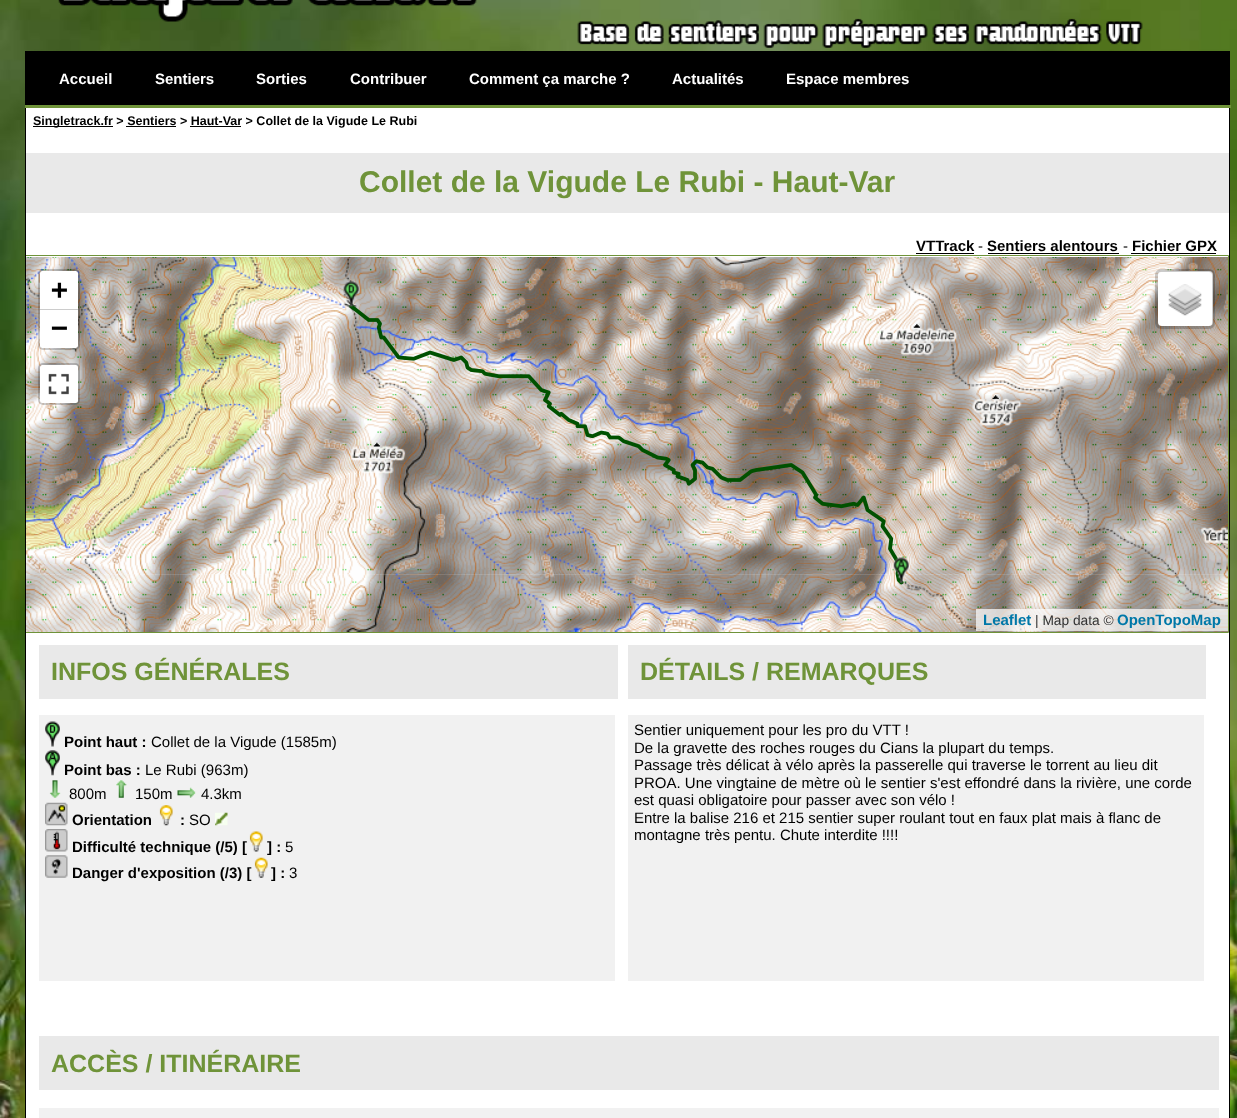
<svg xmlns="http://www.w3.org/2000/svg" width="1237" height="1118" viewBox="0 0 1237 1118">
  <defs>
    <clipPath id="clip1"><path d="M26 108h1203v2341H26z"/></clipPath>
  </defs>
  <rect width="100%" height="100%" fill="#fff"/>
  <image x="0" y="0" width="1237" height="1118" href="img/1.png"/>
  <image x="58" y="0" width="1085" height="48" href="img/2.png"/>
  <path d="M25 51h1205v54H25z" fill="#000"/>
  <path d="M25 105h1206v3H25z" fill="#6f9339"/>
  <path d="M26 108h1203v1010H26z" fill="#fff"/>
  <path d="M1229 108h1v1010H1229z" fill="#000"/>
  <path d="M25 108h1v1010H25z" fill="#000"/>
  <path d="M33 126h80v1H33z" fill="#000"/>
  <path d="M126 126h50v1H126z" fill="#000"/>
  <path d="M190 126h51v1H190z" fill="#000"/>
  <path d="M26 153h1203v60H26z" fill="#e9e9e9"/>
  <path d="M916 253h58v1H916z" fill="#000"/>
  <path d="M988 253h131v1H988z" fill="#000"/>
  <path d="M1131 253h85v1H1131z" fill="#000"/>
  <g clip-path="url(#clip1)">
    <path d="M24.5 255.5h1204v377H24.5z" fill="none" stroke="#6f9339"/>
  </g>
  <image x="26" y="257" width="92" height="317" href="img/3.png"/>
  <image x="118" y="257" width="320" height="317" href="img/4.png"/>
  <image x="438" y="257" width="320" height="317" href="img/5.png"/>
  <image x="758" y="257" width="320" height="317" href="img/6.png"/>
  <image x="1078" y="257" width="150" height="317" href="img/7.png"/>
  <image x="26" y="573" width="92" height="59" href="img/8.png"/>
  <image x="118" y="573" width="320" height="59" href="img/9.png"/>
  <image x="438" y="573" width="320" height="59" href="img/10.png"/>
  <image x="758" y="573" width="320" height="59" href="img/11.png"/>
  <image x="1078" y="573" width="150" height="59" href="img/12.png"/>
  <image x="349" y="304" width="555" height="281" href="img/15.png"/>
  <image x="343" y="281" width="16" height="27" href="img/13.png"/>
  <image x="893" y="557" width="16" height="27" href="img/14.png"/>
  <rect x="39.5" y="270.5" width="39" height="78" rx="3.5" fill="none" stroke="#00000033" stroke-width="3"/>
  <path d="M42.5 271H75.5C77 271 78 272 78 273.5V310H40V273.5C40 272 41 271 42.5 271Z" fill="#fff"/>
  <path d="M40 309h38v1H40z" fill="#ccc"/>
  <path d="M40 310H78V345.5C78 347 77 348 75.5 348H42.5C41 348 40 347 40 345.5Z" fill="#fff"/>
  <rect x="39.5" y="364.5" width="39" height="39" rx="3.5" fill="none" stroke="#00000033" stroke-width="3"/>
  <rect x="40" y="365" width="38" height="38" rx="2.5" fill="#fff"/>
  <image x="48" y="373" width="21" height="22" href="img/16.png"/>
  <rect x="1158" y="271" width="55" height="55" rx="4" fill="#fff"/>
  <rect x="1156.5" y="270.5" width="57" height="57" rx="4.5" fill="none" stroke="#00000033" stroke-width="3"/>
  <image x="1168" y="284" width="34" height="32" href="img/17.png"/>
  <path d="M976 609h252v22H976z" fill="#ffffffb3"/>
  <path d="M39 645h579v54H39z" fill="#e9e9e9"/>
  <path d="M39 715h576v266H39z" fill="#f1f1f1"/>
  <image x="45" y="721" width="15" height="26" href="img/18.png"/>
  <image x="45" y="750" width="15" height="26" href="img/19.png"/>
  <image x="49" y="780" width="12" height="18" href="img/20.png"/>
  <image x="116" y="780" width="11" height="18" href="img/21.png"/>
  <image x="177" y="787" width="19" height="11" href="img/22.png"/>
  <image x="45" y="802" width="23" height="24" href="img/23.png"/>
  <image x="159" y="805" width="14" height="21" href="img/24.png"/>
  <image x="215" y="812" width="13" height="14" href="img/25.png"/>
  <image x="45" y="829" width="23" height="23" href="img/26.png"/>
  <image x="249" y="831" width="14" height="21" href="img/27.png"/>
  <image x="45" y="855" width="23" height="23" href="img/28.png"/>
  <image x="254" y="857" width="14" height="21" href="img/29.png"/>
  <path d="M628 645h578v54H628z" fill="#e9e9e9"/>
  <path d="M628 715h576v266H628z" fill="#f1f1f1"/>
  <path d="M39 1036h1180v54H39z" fill="#e9e9e9"/>
  <path d="M39 1108h1180v10H39z" fill="#f1f1f1"/>
  <g font-family="Liberation Sans" font-size="15" font-weight="bold" fill="#fff">
    <text x="59" y="84">Accueil</text>
    <text x="155" y="84">Sentiers</text>
    <text x="256" y="84">Sorties</text>
    <text x="350" y="84">Contribuer</text>
    <text x="469" y="84">Comment ça marche ?</text>
    <text x="672" y="84">Actualités</text>
    <text x="786" y="84">Espace membres</text>
  </g>
  <text x="33" y="125" font-family="Liberation Sans" font-size="12.5" font-weight="bold" fill="#000">Singletrack.fr &gt; Sentiers &gt; Haut-Var &gt; Collet de la Vigude Le Rubi</text>
  <text x="359" y="192" font-family="Liberation Sans" font-size="30" font-weight="bold" fill="#6f9339">Collet de la Vigude Le Rubi - Haut-Var</text>
  <text x="916" y="251" font-family="Liberation Sans" font-size="15" font-weight="bold" fill="#000">VTTrack</text>
  <text x="978" y="251" font-family="Liberation Sans" font-size="15" fill="#000">-</text>
  <text x="987" y="251" font-family="Liberation Sans" font-size="15" font-weight="bold" fill="#000">Sentiers alentours</text>
  <text x="1123" y="251" font-family="Liberation Sans" font-size="15" fill="#000">-</text>
  <text x="1132" y="251" font-family="Liberation Sans" font-size="15" font-weight="bold" fill="#000">Fichier GPX</text>
  <g font-family="DejaVu Sans Mono" font-size="28" font-weight="bold" fill="#000">
    <text x="51" y="299">+</text>
    <text x="51" y="337">−</text>
  </g>
  <text x="983" y="625" font-family="Liberation Sans" font-size="15" font-weight="bold" fill="#0078a8">Leaflet</text>
  <text x="1035" y="625" font-family="Liberation Sans" font-size="13.75" fill="#333">| Map data ©</text>
  <text x="1117" y="625" font-family="Liberation Sans" font-size="15" font-weight="bold" fill="#0078a8">OpenTopoMap</text>
  <text x="51" y="680" font-family="Liberation Sans" font-size="25" font-weight="bold" fill="#6f9339">INFOS GÉNÉRALES</text>
  <text x="64" y="747" font-family="Liberation Sans" font-size="15" font-weight="bold" fill="#000">Point haut :</text>
  <text x="151" y="747" font-family="Liberation Sans" font-size="15" fill="#000">Collet de la Vigude (1585m)</text>
  <text x="64" y="775" font-family="Liberation Sans" font-size="15" font-weight="bold" fill="#000">Point bas :</text>
  <g font-family="Liberation Sans" font-size="15" fill="#000">
    <text x="145" y="775">Le Rubi (963m)</text>
    <text x="69" y="799">800m</text>
    <text x="135" y="799">150m</text>
    <text x="201" y="799">4.3km</text>
  </g>
  <g font-family="Liberation Sans" font-size="15" font-weight="bold" fill="#000">
    <text x="72" y="825">Orientation</text>
    <text x="180" y="825">:</text>
  </g>
  <text x="189" y="825" font-family="Liberation Sans" font-size="15" fill="#000">SO</text>
  <g font-family="Liberation Sans" font-size="15" font-weight="bold" fill="#000">
    <text x="72" y="852">Difficulté technique (/5) [</text>
    <text x="267" y="852">] :</text>
  </g>
  <text x="285" y="852" font-family="Liberation Sans" font-size="15" fill="#000">5</text>
  <g font-family="Liberation Sans" font-size="15" font-weight="bold" fill="#000">
    <text x="72" y="878">Danger d'exposition (/3) [</text>
    <text x="271" y="878">] :</text>
  </g>
  <text x="289" y="878" font-family="Liberation Sans" font-size="15" fill="#000">3</text>
  <text x="640" y="680" font-family="Liberation Sans" font-size="25" font-weight="bold" fill="#6f9339">DÉTAILS / REMARQUES</text>
  <g font-family="Liberation Sans" font-size="15" fill="#000">
    <text x="634" y="735">Sentier uniquement pour les pro du VTT !</text>
    <text x="634" y="753">De la gravette des roches rouges du Cians la plupart du temps.</text>
    <text x="634" y="770">Passage très délicat à vélo après la passerelle qui traverse le torrent au lieu dit</text>
    <text x="634" y="788">PROA. Une vingtaine de mètre où le sentier s'est effondré dans la rivière, une corde</text>
    <text x="634" y="805">est quasi obligatoire pour passer avec son vélo !</text>
    <text x="634" y="823">Entre la balise 216 et 215 sentier super roulant tout en faux plat mais à flanc de</text>
    <text x="634" y="840">montagne très pentu. Chute interdite !!!!</text>
  </g>
  <text x="51" y="1072" font-family="Liberation Sans" font-size="25" font-weight="bold" fill="#6f9339">ACCÈS / ITINÉRAIRE</text>
</svg>
